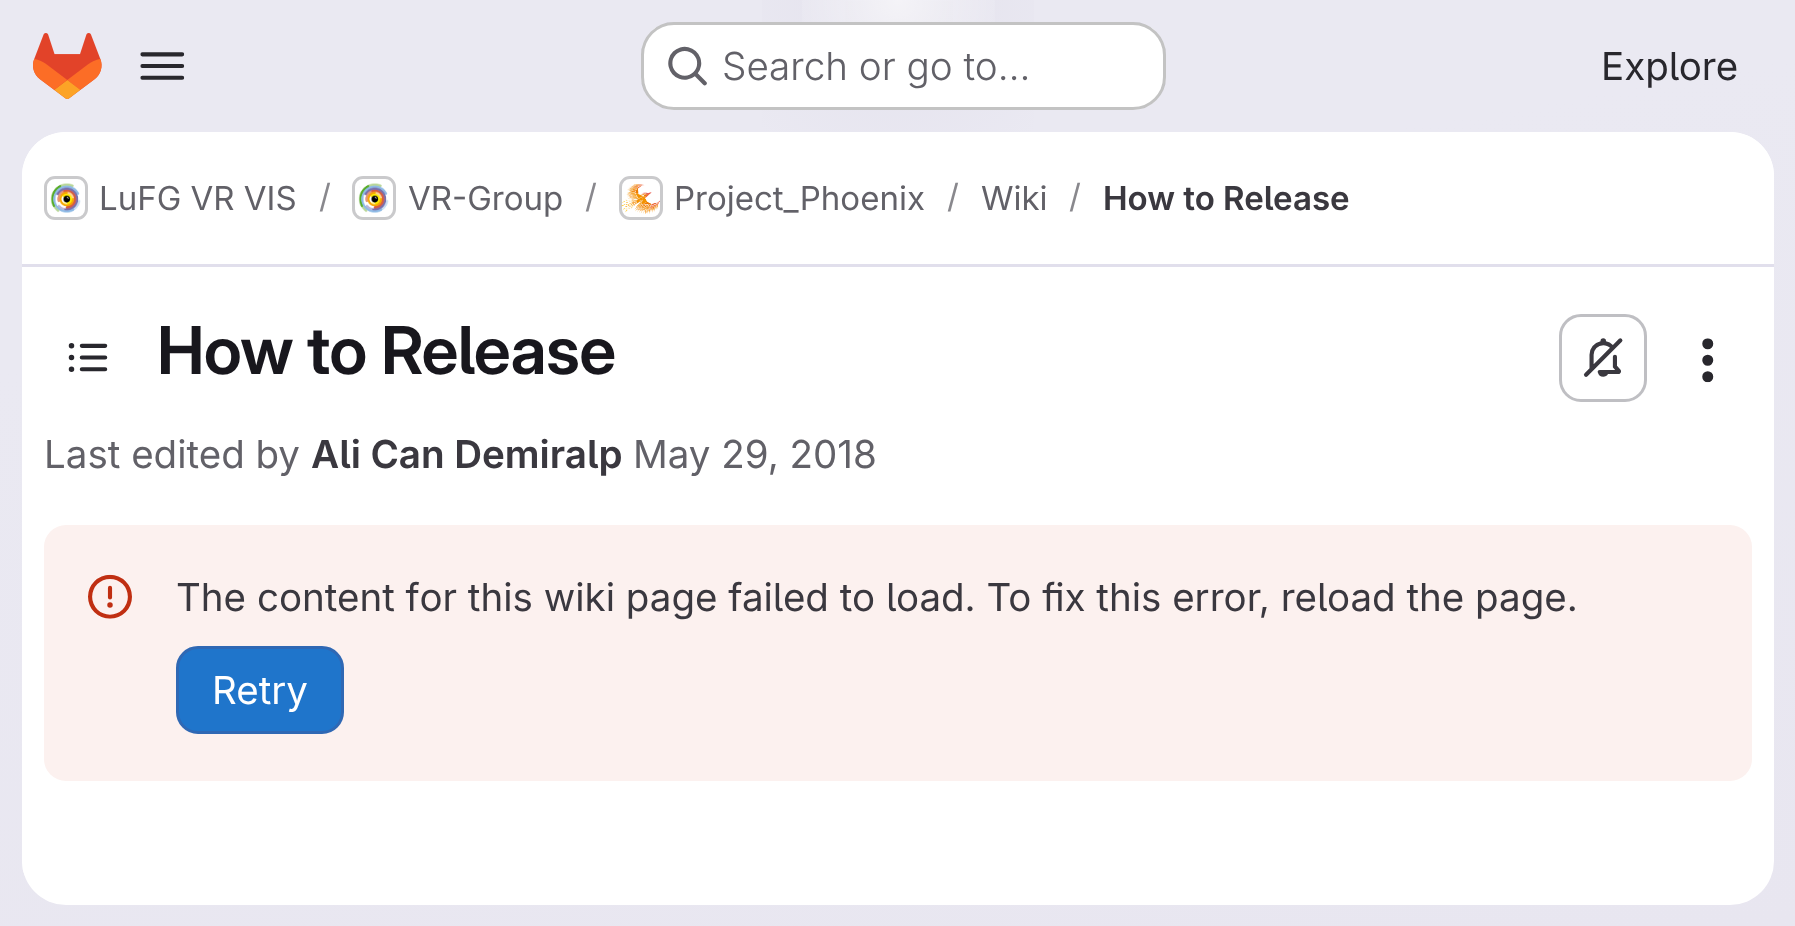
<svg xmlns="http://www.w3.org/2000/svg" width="1795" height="926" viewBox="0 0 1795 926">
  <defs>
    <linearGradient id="g1" gradientUnits="userSpaceOnUse" x1="1004" y1="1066" x2="792" y2="-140"><stop offset="0" stop-color="#e8e6f0"/><stop offset="0.7" stop-color="#eae9f2"/></linearGradient>
    <radialGradient id="g2" gradientUnits="userSpaceOnUse" cx="0" cy="0" r="1" gradientTransform="matrix(898 0 0 927 898 0)"><stop offset="0" stop-color="#e4e2ed"/><stop offset="0.21" stop-color="#e4e2ed" stop-opacity="0"/></radialGradient>
    <radialGradient id="g3" gradientUnits="userSpaceOnUse" cx="0" cy="0" r="1" gradientTransform="matrix(898 0 0 927 898 0)"><stop offset="0" stop-color="#e4e2ec"/><stop offset="0.15" stop-color="#e4e2ec" stop-opacity="0"/></radialGradient>
    <radialGradient id="g4" gradientUnits="userSpaceOnUse" cx="898" cy="0" r="1290"><stop offset="0" stop-color="#fff" stop-opacity="0.6"/><stop offset="0.09" stop-color="#fff" stop-opacity="0"/></radialGradient>
    <clipPath id="clip1"><rect x="22" y="132" width="1752" height="773" rx="44"/></clipPath>
  </defs>
  <rect width="100%" height="100%" fill="#fff"/>
  <path d="M0 0h1795v926H0z" fill="url(#g1)"/>
  <path d="M762 0h272v132H762z" fill="url(#g2)"/>
  <path d="M845 1h108v55H845z" fill="url(#g3)"/>
  <path d="M802 0h193v97H802z" fill="url(#g4)"/>
  <image x="33" y="33" width="69" height="66" href="img/1.png"/>
  <image x="140" y="52" width="45" height="28" href="img/2.png"/>
  <rect x="641" y="22" width="525" height="88" rx="33" fill="#fff"/>
  <rect x="642.5" y="23.5" width="522" height="85" rx="31.5" fill="none" stroke="#0505063d" stroke-width="3"/>
  <image x="668" y="46" width="39" height="40" href="img/3.png"/>
  <rect x="22" y="132" width="1752" height="773" rx="44" fill="#fff"/>
  <path d="M66 132H1730C1754.5 132 1774 151.5 1774 176V267H22V176C22 151.5 41.5 132 66 132Z" fill="#fff"/>
  <path d="M22 264h1752v3H22z" fill="#e1dfec"/>
  <rect x="45.5" y="177.5" width="41" height="41" rx="9.5" fill="none" stroke="#dcdcde" stroke-width="3"/>
  <image x="50" y="183" width="31" height="30" href="img/4.png"/>
  <rect x="45.5" y="177.5" width="41" height="41" rx="9.5" fill="none" stroke="#05050614" stroke-width="3"/>
  <rect x="353.5" y="177.5" width="41" height="41" rx="9.5" fill="none" stroke="#dcdcde" stroke-width="3"/>
  <image x="358" y="183" width="31" height="30" href="img/4.png"/>
  <rect x="353.5" y="177.5" width="41" height="41" rx="9.5" fill="none" stroke="#05050614" stroke-width="3"/>
  <rect x="620.5" y="177.5" width="41" height="41" rx="9.5" fill="none" stroke="#dcdcde" stroke-width="3"/>
  <image x="621" y="184" width="39" height="30" href="img/5.png"/>
  <rect x="620.5" y="177.5" width="41" height="41" rx="9.5" fill="none" stroke="#05050614" stroke-width="3"/>
  <g clip-path="url(#clip1)">
    <path d="M22 267h3v610H22z" fill="#fff"/>
  </g>
  <image x="68" y="343" width="40" height="29" href="img/6.png"/>
  <rect x="1560.5" y="315.5" width="85" height="85" rx="20.5" fill="none" stroke="#bfbfc3" stroke-width="3"/>
  <image x="1583" y="338" width="40" height="39" href="img/7.png"/>
  <image x="1702" y="338" width="12" height="45" href="img/8.png"/>
  <rect x="44" y="525" width="1708" height="256" rx="22" fill="#fcf1ef"/>
  <image x="88" y="574" width="44" height="45" href="img/9.png"/>
  <rect x="177.5" y="647.5" width="165" height="85" rx="20.5" fill="#1f75cb" stroke="#2f68b4" stroke-width="3"/>
  <text x="722" y="80" font-family="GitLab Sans" font-size="38.5" font-weight="300" fill="#626168">Search or go to…</text>
  <text x="1601" y="80" font-family="GitLab Sans" font-size="38.5" fill="#28272d">Explore</text>
  <text x="99" y="210" font-family="GitLab Sans" font-size="33" fill="#626168">LuFG VR VIS</text>
  <text x="319" y="208" font-family="GitLab Sans" font-size="33" fill="#89888d">/</text>
  <text x="408" y="210" font-family="GitLab Sans" font-size="33" fill="#626168">VR-Group</text>
  <text x="585" y="208" font-family="GitLab Sans" font-size="33" fill="#89888d">/</text>
  <text x="674" y="210" font-family="GitLab Sans" font-size="33" fill="#626168">Project_Phoenix</text>
  <text x="947" y="208" font-family="GitLab Sans" font-size="33" fill="#89888d">/</text>
  <text x="981" y="210" font-family="GitLab Sans" font-size="33" fill="#626168">Wiki</text>
  <text x="1069" y="208" font-family="GitLab Sans" font-size="33" fill="#89888d">/</text>
  <text x="1103" y="210" font-family="'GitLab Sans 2'" font-size="33" font-weight="600" fill="#3a383f">How to Release</text>
  <text x="157" y="374" font-family="GitLab Sans" font-size="66" font-weight="600" letter-spacing="-0.7" fill="#18171d">How to Release</text>
  <text x="44" y="468" font-family="GitLab Sans" font-size="38.5" fill="#626168">Last edited by</text>
  <text x="311" y="468" font-family="'GitLab Sans 2'" font-size="38.5" font-weight="600" fill="#3a383f">Ali Can Demiralp</text>
  <text x="633" y="468" font-family="GitLab Sans" font-size="38.5" fill="#626168">May 29, 2018</text>
  <text x="176" y="611" font-family="GitLab Sans" font-size="38.5" fill="#3a383f">The content for this wiki page failed to load. To fix this error, reload the page.</text>
  <text x="212" y="704" font-family="GitLab Sans" font-size="38.5" fill="#fff">Retry</text>
</svg>
